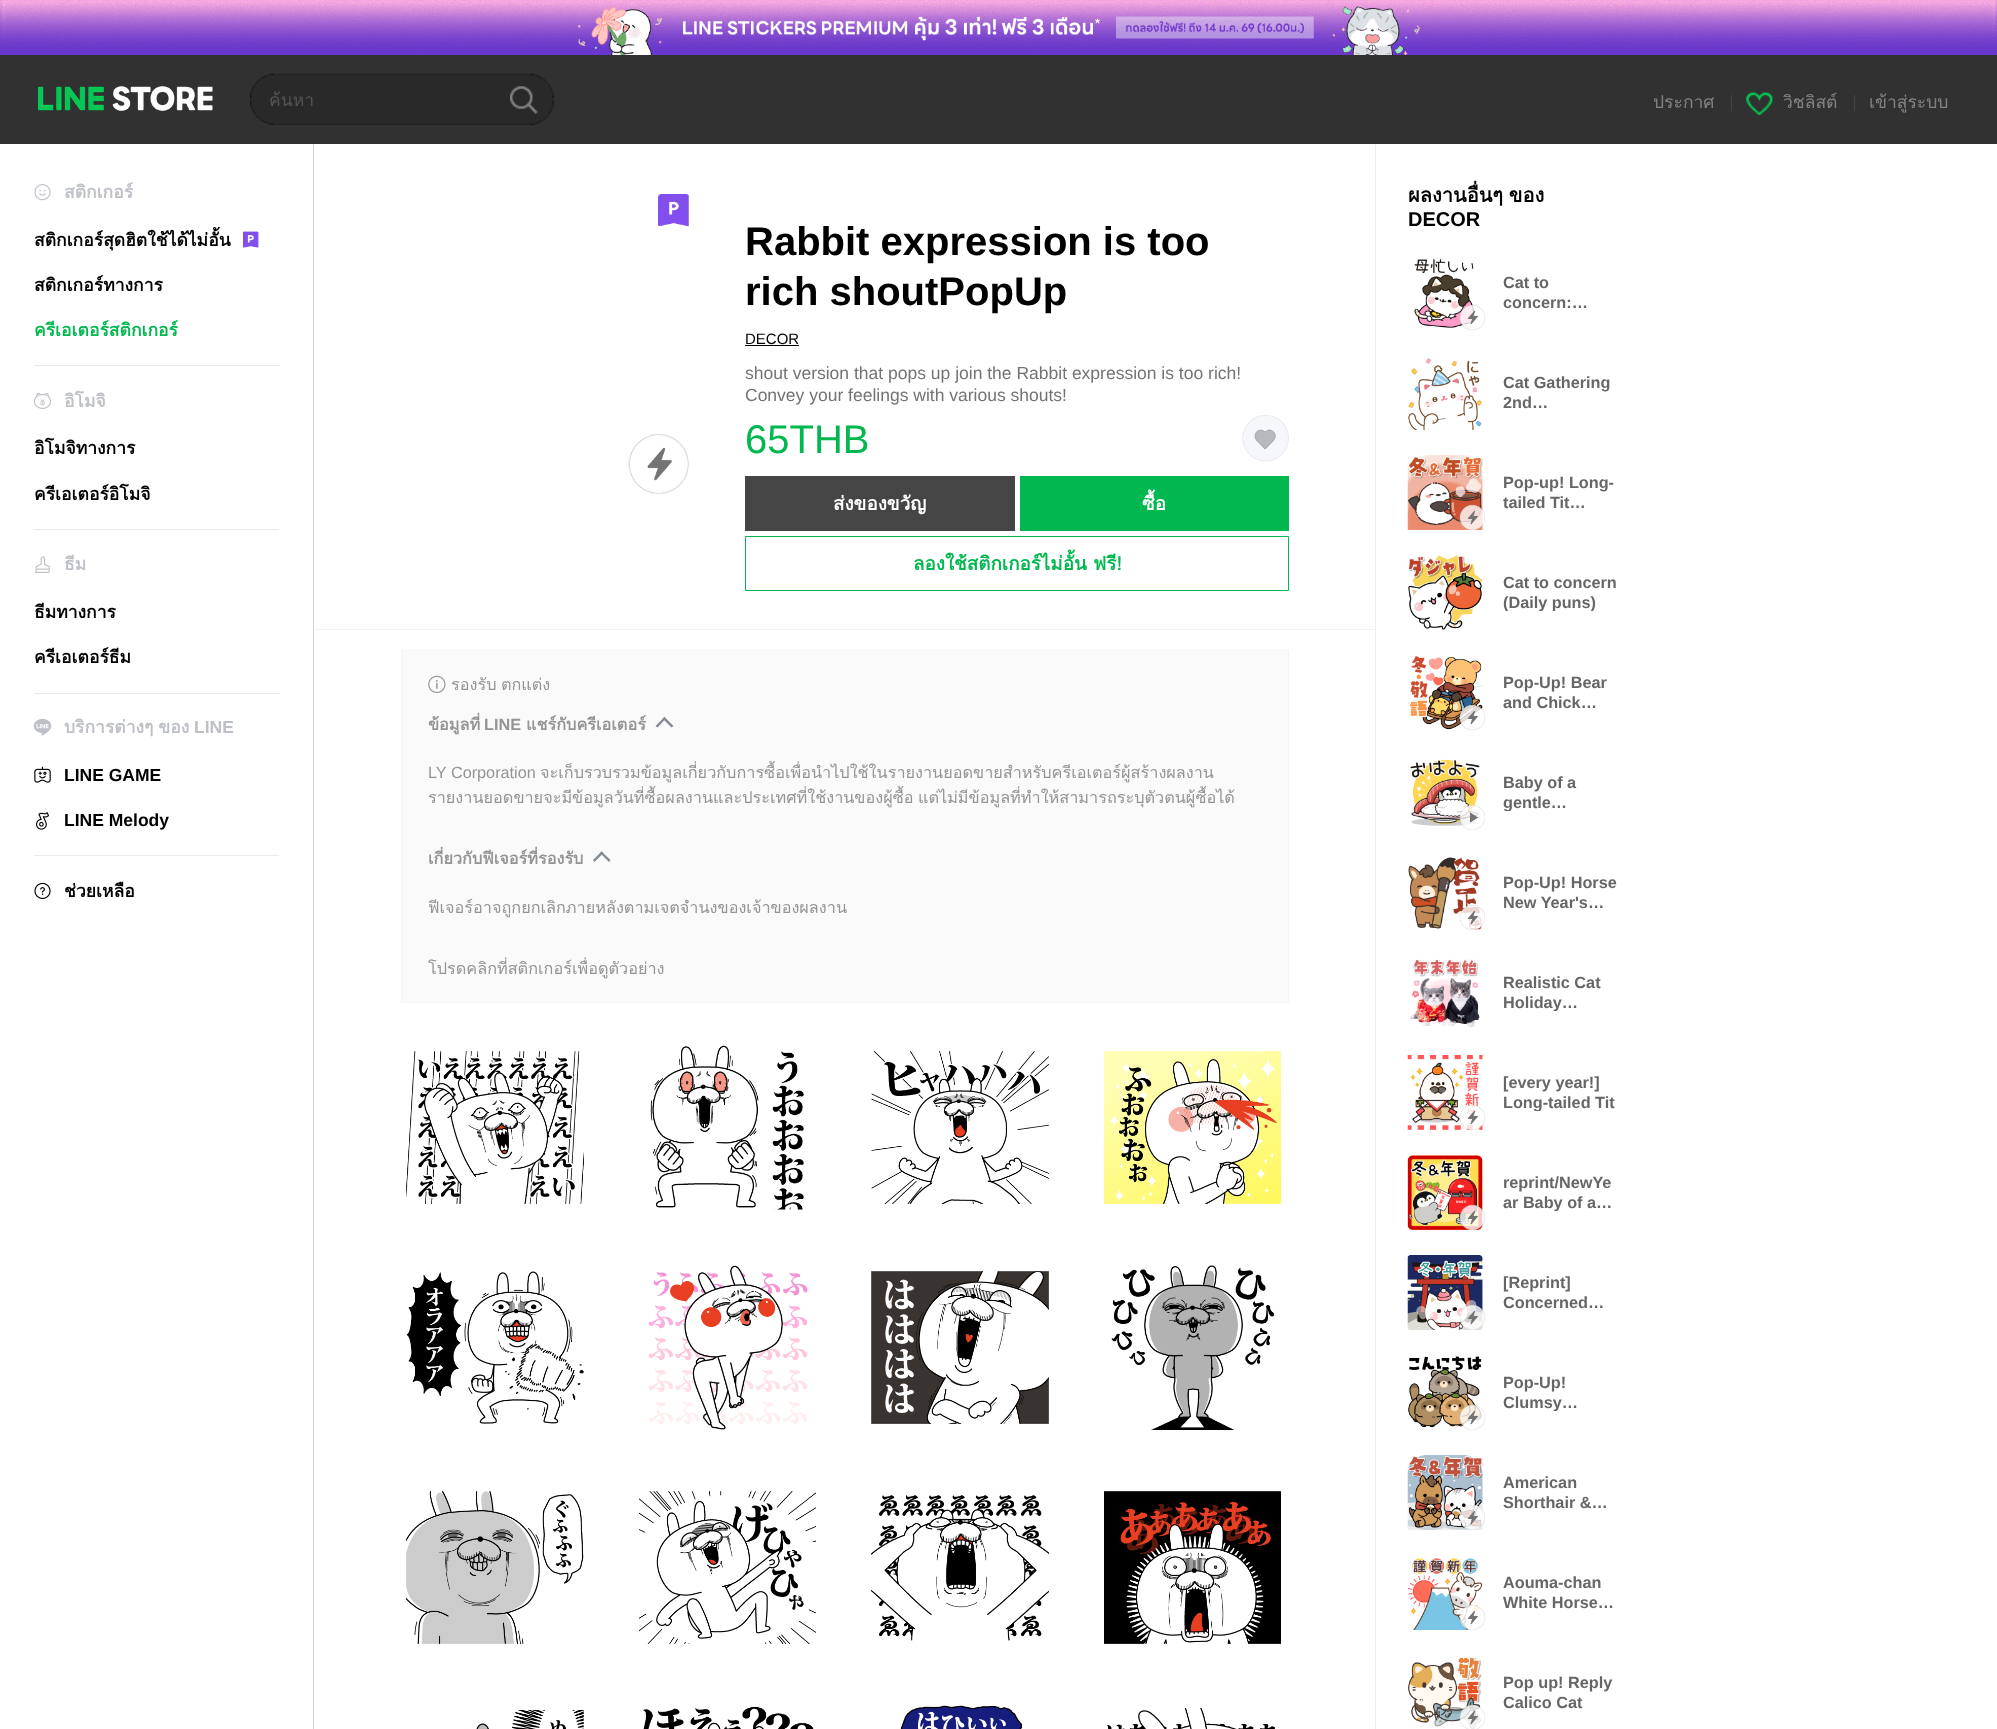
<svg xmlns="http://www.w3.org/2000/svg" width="1997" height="1729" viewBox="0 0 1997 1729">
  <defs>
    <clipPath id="clip1"><path d="M269 86h227v28H269z"/></clipPath>
    <clipPath id="clip2"><path d="M1503 574h115v37H1503z"/></clipPath>
    <clipPath id="clip3"><path d="M1503 774h115v37H1503z"/></clipPath>
    <clipPath id="clip4"><path d="M1503 974h115v37H1503z"/></clipPath>
    <clipPath id="clip5"><path d="M1503 1074h115v37H1503z"/></clipPath>
    <clipPath id="clip6"><path d="M1503 1174h115v37H1503z"/></clipPath>
    <clipPath id="clip7"><path d="M1503 1374h115v37H1503z"/></clipPath>
    <clipPath id="clip8"><path d="M1503 1574h115v37H1503z"/></clipPath>
  </defs>
  <rect width="100%" height="100%" fill="#fff"/>
  <image x="0" y="0" width="1997" height="55" href="img/1.png"/>
  <path d="M0 55h1997v89H0z" fill="#313131"/>
  <image x="37" y="86" width="176" height="25" href="img/2.png"/>
  <image x="250" y="73" width="304" height="52" href="img/3.png"/>
  <image x="510" y="86" width="28" height="28" href="img/4.png"/>
  <path d="M1731 95h1v16H1731z" fill="#444"/>
  <image x="1746" y="92" width="27" height="23" href="img/5.png"/>
  <path d="M1854 95h1v16H1854z" fill="#444"/>
  <image x="34" y="184" width="17" height="17" href="img/6.png"/>
  <image x="243" y="231" width="16" height="17" href="img/7.png"/>
  <path d="M34 365h245v1H34z" fill="#ebebeb"/>
  <image x="33" y="392" width="19" height="17" href="img/8.png"/>
  <path d="M34 529h245v1H34z" fill="#ebebeb"/>
  <image x="35" y="556" width="15" height="17" href="img/9.png"/>
  <path d="M34 693h245v1H34z" fill="#ebebeb"/>
  <image x="33" y="718" width="19" height="18" href="img/10.png"/>
  <image x="34" y="766" width="17" height="17" href="img/11.png"/>
  <image x="36" y="812" width="13" height="18" href="img/12.png"/>
  <path d="M34 855h245v1H34z" fill="#ebebeb"/>
  <image x="34" y="882" width="17" height="17" href="img/13.png"/>
  <path d="M313 144h1v1585H313z" fill="#d6d6d6"/>
  <image x="658" y="194" width="31" height="33" href="img/14.png"/>
  <image x="628" y="434" width="61" height="60" href="img/15.png"/>
  <path d="M745 345h54v1H745z" fill="#000"/>
  <image x="1242" y="415" width="47" height="47" href="img/16.png"/>
  <path d="M745 476h270v55H745z" fill="#454545"/>
  <path d="M1020 476h269v55H1020z" fill="#00b84f"/>
  <path d="M745.5 536.5h543v54H745.5z" fill="none" stroke="#00b84f"/>
  <path d="M314 629h1062v1H314z" fill="#f2f2f2"/>
  <path d="M1375 144h1v1585H1375z" fill="#efefef"/>
  <path d="M401.5 650.5h887v352H401.5z" fill="#fafafa" stroke="#f5f5f5"/>
  <image x="428" y="675" width="18" height="18" href="img/17.png"/>
  <path d="M655.5 726L664.5 717L666 718.5L657.5 727.5Z" fill="#848a94"/>
  <path d="M662.5 718.5L664.5 717L673.5 726L671.5 727.5Z" fill="#848a94"/>
  <path d="M593 860L601.5 851.5L603.5 853L594.5 862Z" fill="#848a94"/>
  <path d="M600 853L601.5 851.5L610.5 860L609 862Z" fill="#848a94"/>
  <image x="406" y="1051" width="178" height="153" href="img/18.png"/>
  <image x="650" y="1045" width="154" height="165" href="img/19.png"/>
  <image x="871" y="1051" width="178" height="153" href="img/20.png"/>
  <image x="1104" y="1051" width="177" height="153" href="img/21.png"/>
  <image x="406" y="1271" width="178" height="153" href="img/22.png"/>
  <image x="648" y="1265" width="160" height="165" href="img/23.png"/>
  <image x="871" y="1271" width="178" height="153" href="img/24.png"/>
  <image x="1111" y="1265" width="163" height="165" href="img/25.png"/>
  <image x="406" y="1491" width="178" height="153" href="img/26.png"/>
  <image x="639" y="1491" width="177" height="153" href="img/27.png"/>
  <image x="871" y="1495" width="178" height="146" href="img/28.png"/>
  <image x="1104" y="1491" width="177" height="153" href="img/29.png"/>
  <image x="476" y="1710" width="108" height="19" href="img/30.png"/>
  <image x="643" y="1706" width="171" height="23" href="img/31.png"/>
  <image x="900" y="1705" width="123" height="24" href="img/32.png"/>
  <image x="1107" y="1708" width="168" height="21" href="img/33.png"/>
  <image x="1414" y="258" width="61" height="70" href="img/34.png"/>
  <image x="1459" y="304" width="26" height="26" href="img/35.png"/>
  <image x="1408" y="358" width="74" height="72" href="img/36.png"/>
  <image x="1407" y="455" width="76" height="75" href="img/37.png"/>
  <image x="1459" y="504" width="26" height="26" href="img/38.png"/>
  <image x="1408" y="555" width="75" height="75" href="img/39.png"/>
  <image x="1407" y="656" width="76" height="74" href="img/40.png"/>
  <image x="1459" y="704" width="26" height="26" href="img/41.png"/>
  <image x="1410" y="759" width="70" height="67" href="img/42.png"/>
  <image x="1459" y="804" width="26" height="26" href="img/43.png"/>
  <image x="1408" y="857" width="74" height="73" href="img/44.png"/>
  <image x="1459" y="905" width="26" height="25" href="img/45.png"/>
  <image x="1410" y="959" width="70" height="68" href="img/46.png"/>
  <image x="1407" y="1055" width="76" height="75" href="img/47.png"/>
  <image x="1459" y="1104" width="26" height="26" href="img/48.png"/>
  <image x="1407" y="1155" width="76" height="75" href="img/49.png"/>
  <image x="1459" y="1204" width="26" height="26" href="img/50.png"/>
  <image x="1407" y="1255" width="76" height="75" href="img/51.png"/>
  <image x="1459" y="1304" width="26" height="26" href="img/52.png"/>
  <image x="1408" y="1356" width="74" height="72" href="img/53.png"/>
  <image x="1459" y="1404" width="26" height="26" href="img/54.png"/>
  <image x="1407" y="1455" width="76" height="75" href="img/55.png"/>
  <image x="1459" y="1505" width="26" height="25" href="img/56.png"/>
  <image x="1408" y="1558" width="75" height="72" href="img/57.png"/>
  <image x="1459" y="1605" width="26" height="25" href="img/58.png"/>
  <image x="1408" y="1657" width="74" height="72" href="img/59.png"/>
  <image x="1459" y="1704" width="26" height="25" href="img/60.png"/>
  <g clip-path="url(#clip1)">
    <text x="269" y="106" font-family="Loma" font-size="17.5" fill="#545454">ค้นหา</text>
  </g>
  <g font-family="Loma" font-size="17.5" fill="#848484">
    <text x="1653" y="108">ประกาศ</text>
    <text x="1783" y="108">วิชลิสต์</text>
    <text x="1869" y="108">เข้าสู่ระบบ</text>
  </g>
  <text x="64" y="198" font-family="Loma" font-size="17.5" font-weight="bold" fill="#bec0c7">สติกเกอร์</text>
  <g font-family="Loma" font-size="17.5" font-weight="bold" fill="#000">
    <text x="34" y="246">สติกเกอร์สุดฮิตใช้ได้ไม่อั้น</text>
    <text x="34" y="291">สติกเกอร์ทางการ</text>
  </g>
  <text x="34" y="336" font-family="Loma" font-size="17.5" font-weight="bold" fill="#00b84f">ครีเอเตอร์สติกเกอร์</text>
  <text x="64" y="407" font-family="Loma" font-size="17.5" font-weight="bold" fill="#bec0c7">อิโมจิ</text>
  <g font-family="Loma" font-size="17.5" font-weight="bold" fill="#000">
    <text x="34" y="454">อิโมจิทางการ</text>
    <text x="34" y="500">ครีเอเตอร์อิโมจิ</text>
  </g>
  <text x="64" y="570" font-family="Loma" font-size="17.5" font-weight="bold" fill="#bec0c7">ธีม</text>
  <g font-family="Loma" font-size="17.5" font-weight="bold" fill="#000">
    <text x="34" y="618">ธีมทางการ</text>
    <text x="34" y="663">ครีเอเตอร์ธีม</text>
  </g>
  <text x="64" y="733" word-spacing="-1" font-family="Loma" font-size="17.5" font-weight="bold" fill="#bec0c7">บริการต่างๆ ของ</text>
  <text x="194" y="733" font-family="Liberation Sans" font-size="17.5" font-weight="bold" fill="#bec0c7">LINE</text>
  <g font-family="Liberation Sans" font-size="17.5" font-weight="bold" fill="#000">
    <text x="64" y="781">LINE GAME</text>
    <text x="64" y="826">LINE Melody</text>
  </g>
  <text x="64" y="897" font-family="Loma" font-size="17.5" font-weight="bold" fill="#000">ช่วยเหลือ</text>
  <g font-family="Liberation Sans" font-size="40" font-weight="bold" fill="#000">
    <text x="745" y="255">Rabbit expression is too</text>
    <text x="745" y="305">rich shoutPopUp</text>
  </g>
  <text x="745" y="344" font-family="Liberation Sans" font-size="15" fill="#000">DECOR</text>
  <g font-family="Liberation Sans" font-size="17.5" fill="#737373">
    <text x="745" y="379">shout version that pops up join the Rabbit expression is too rich!</text>
    <text x="745" y="401">Convey your feelings with various shouts!</text>
  </g>
  <text x="745" y="453" font-family="Liberation Sans" font-size="40" fill="#00b84f">65THB</text>
  <g font-family="Loma" font-size="18.75" font-weight="bold" fill="#fff">
    <text x="833" y="510">ส่งของขวัญ</text>
    <text x="1142" y="510">ซื้อ</text>
  </g>
  <text x="913" y="570" font-family="Loma" font-size="18.75" font-weight="bold" fill="#00b84f">ลองใช้สติกเกอร์ไม่อั้น ฟรี!</text>
  <text x="451" y="690" word-spacing="-1" font-family="Loma" font-size="16.25" fill="#949494">รองรับ ตกแต่ง</text>
  <text x="428" y="730" font-family="Loma" font-size="16.25" font-weight="bold" fill="#949494">ข้อมูลที่</text>
  <text x="484" y="730" font-family="Liberation Sans" font-size="16.25" font-weight="bold" fill="#949494">LINE</text>
  <text x="526" y="730" font-family="Loma" font-size="16.25" font-weight="bold" fill="#949494">แชร์กับครีเอเตอร์</text>
  <text x="428" y="778" font-family="Liberation Sans" font-size="16.25" fill="#949494">LY Corporation</text>
  <g font-family="Loma" font-size="16.25" fill="#949494">
    <text x="540" y="778">จะเก็บรวบรวมข้อมูลเกี่ยวกับการซื้อเพื่อนำไปใช้ในรายงานยอดขายสำหรับครีเอเตอร์ผู้สร้างผลงาน</text>
    <text x="428" y="803" word-spacing="-1">รายงานยอดขายจะมีข้อมูลวันที่ซื้อผลงานและประเทศที่ใช้งานของผู้ซื้อ แต่ไม่มีข้อมูลที่ทำให้สามารถระบุตัวตนผู้ซื้อได้</text>
  </g>
  <text x="428" y="864" font-family="Loma" font-size="16.25" font-weight="bold" fill="#949494">เกี่ยวกับฟีเจอร์ที่รองรับ</text>
  <g font-family="Loma" font-size="16.25" fill="#949494">
    <text x="428" y="913">ฟีเจอร์อาจถูกยกเลิกภายหลังตามเจตจำนงของเจ้าของผลงาน</text>
    <text x="428" y="974">โปรดคลิกที่สติกเกอร์เพื่อดูตัวอย่าง</text>
  </g>
  <text x="1408" y="202" word-spacing="-1" font-family="Loma" font-size="20" font-weight="bold" fill="#000">ผลงานอื่นๆ ของ</text>
  <text x="1408" y="226" font-family="Liberation Sans" font-size="20" font-weight="bold" fill="#000">DECOR</text>
  <g font-family="Liberation Sans" font-size="16.25" font-weight="bold" fill="#666">
    <text x="1503" y="288">Cat to</text>
    <text x="1503" y="308">concern:…</text>
    <text x="1503" y="388">Cat Gathering</text>
    <text x="1503" y="408">2nd…</text>
    <text x="1503" y="488">Pop-up! Long-</text>
    <text x="1503" y="508">tailed Tit…</text>
    <text x="1503" y="588">Cat to concern</text>
  </g>
  <g clip-path="url(#clip2)">
    <text x="1503" y="608" font-family="Liberation Sans" font-size="16.25" font-weight="bold" fill="#666">(Daily puns)</text>
  </g>
  <g font-family="Liberation Sans" font-size="16.25" font-weight="bold" fill="#666">
    <text x="1503" y="688">Pop-Up! Bear</text>
    <text x="1503" y="708">and Chick…</text>
    <text x="1503" y="788">Baby of a</text>
  </g>
  <g clip-path="url(#clip3)">
    <text x="1503" y="808" font-family="Liberation Sans" font-size="16.25" font-weight="bold" fill="#666">gentle…</text>
  </g>
  <g font-family="Liberation Sans" font-size="16.25" font-weight="bold" fill="#666">
    <text x="1503" y="888">Pop-Up! Horse</text>
    <text x="1503" y="908">New Year's…</text>
    <text x="1503" y="988">Realistic Cat</text>
  </g>
  <g clip-path="url(#clip4)">
    <text x="1503" y="1008" font-family="Liberation Sans" font-size="16.25" font-weight="bold" fill="#666">Holiday…</text>
  </g>
  <text x="1503" y="1088" font-family="Liberation Sans" font-size="16.25" font-weight="bold" fill="#666">[every year!]</text>
  <g clip-path="url(#clip5)">
    <text x="1503" y="1108" font-family="Liberation Sans" font-size="16.25" font-weight="bold" fill="#666">Long-tailed Tit</text>
  </g>
  <text x="1503" y="1188" font-family="Liberation Sans" font-size="16.25" font-weight="bold" fill="#666">reprint/NewYe</text>
  <g clip-path="url(#clip6)">
    <text x="1503" y="1208" font-family="Liberation Sans" font-size="16.25" font-weight="bold" fill="#666">ar Baby of a…</text>
  </g>
  <g font-family="Liberation Sans" font-size="16.25" font-weight="bold" fill="#666">
    <text x="1503" y="1288">[Reprint]</text>
    <text x="1503" y="1308">Concerned…</text>
    <text x="1503" y="1388">Pop-Up!</text>
  </g>
  <g clip-path="url(#clip7)">
    <text x="1503" y="1408" font-family="Liberation Sans" font-size="16.25" font-weight="bold" fill="#666">Clumsy…</text>
  </g>
  <g font-family="Liberation Sans" font-size="16.25" font-weight="bold" fill="#666">
    <text x="1503" y="1488">American</text>
    <text x="1503" y="1508">Shorthair &amp;…</text>
    <text x="1503" y="1588">Aouma-chan</text>
  </g>
  <g clip-path="url(#clip8)">
    <text x="1503" y="1608" font-family="Liberation Sans" font-size="16.25" font-weight="bold" fill="#666">White Horse…</text>
  </g>
  <g font-family="Liberation Sans" font-size="16.25" font-weight="bold" fill="#666">
    <text x="1503" y="1688">Pop up! Reply</text>
    <text x="1503" y="1708">Calico Cat</text>
  </g>
</svg>
